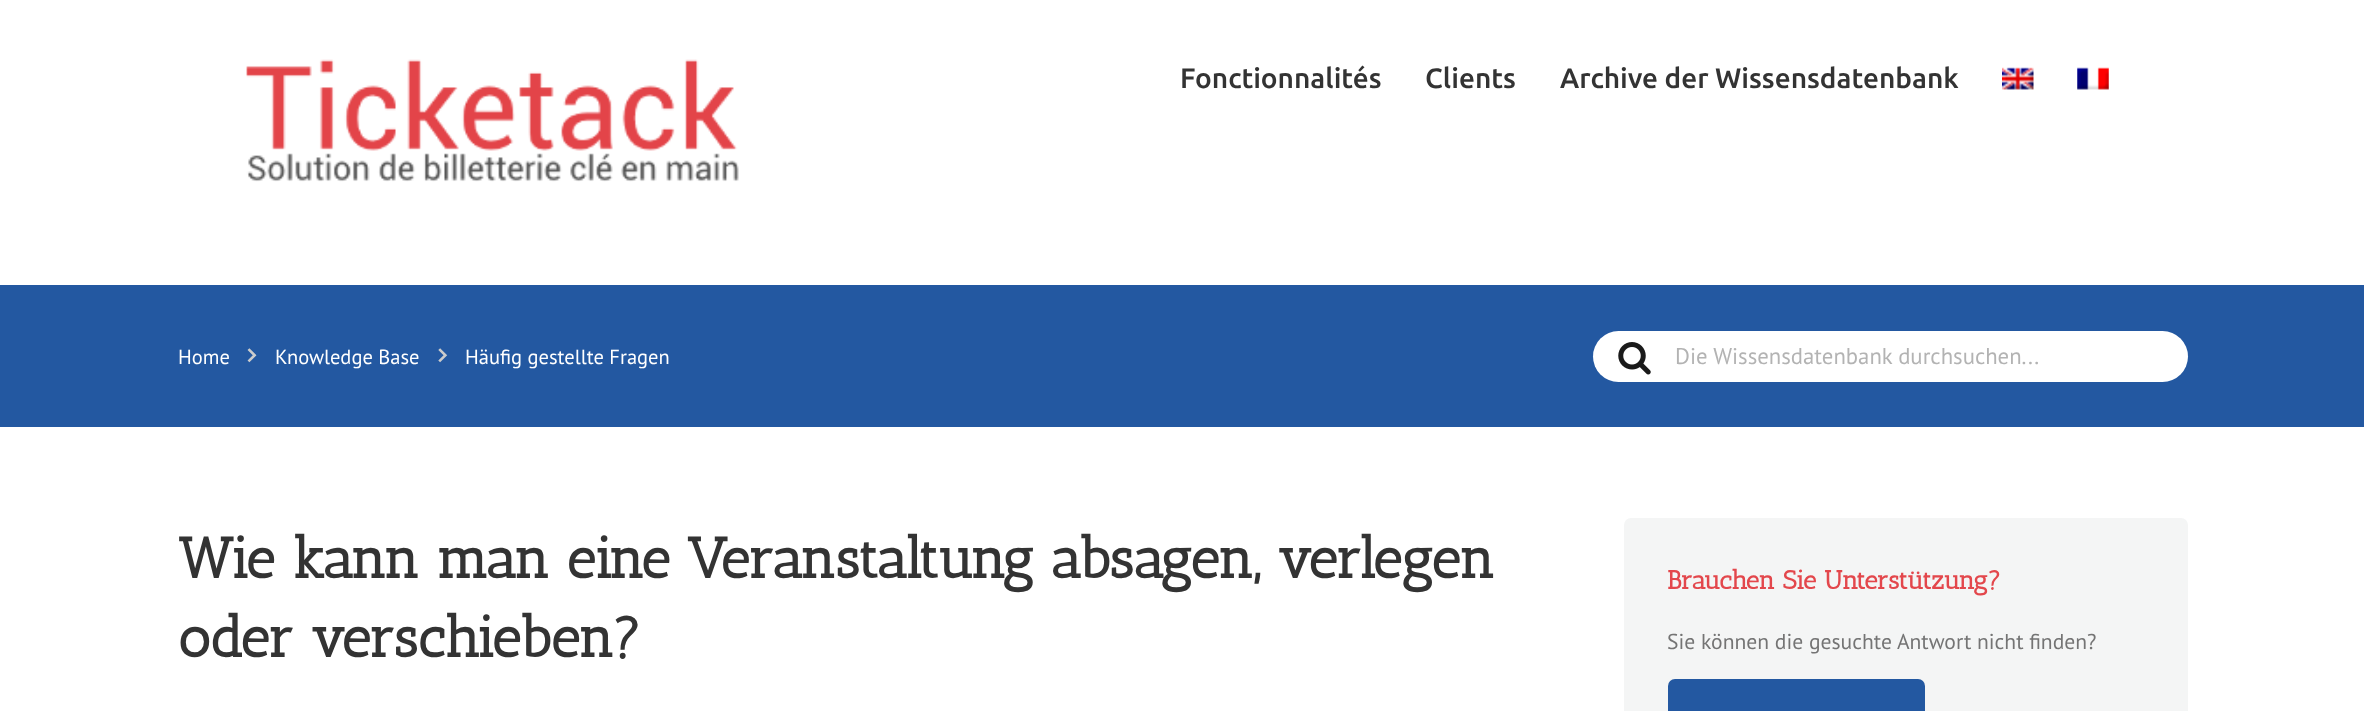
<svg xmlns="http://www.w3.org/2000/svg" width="2379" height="711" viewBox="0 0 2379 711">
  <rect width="100%" height="100%" fill="#fff"/>
  <image x="246" y="59" width="493" height="123" href="img/1.png"/>
  <image x="2002" y="67" width="32" height="23" href="img/2.png"/>
  <image x="2077" y="67" width="32" height="23" href="img/3.png"/>
  <path d="M0 285h2364v142H0z" fill="#2358a1"/>
  <image x="247" y="348" width="10" height="15" href="img/4.png"/>
  <image x="438" y="348" width="10" height="15" href="img/5.png"/>
  <rect x="1593" y="331" width="595" height="51" rx="25.5" fill="#fff"/>
  <image x="1618" y="342" width="33" height="33" href="img/6.png"/>
  <rect x="1624" y="518" width="564" height="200" rx="7" fill="#f4f5f5"/>
  <rect x="1668" y="679" width="257" height="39" rx="7" fill="#2358a1"/>
  <g font-family="Ubuntu" font-size="28" font-weight="500" fill="#333">
    <text x="1180" y="88">Fonctionnalités</text>
    <text x="1425" y="88">Clients</text>
    <text x="1560" y="88">Archive der Wissensdatenbank</text>
  </g>
  <g font-family="PT Sans" font-size="20.5" fill="#fff">
    <text x="178" y="364">Home</text>
    <text x="275" y="364">Knowledge Base</text>
    <text x="465" y="364">Häufig gestellte Fragen</text>
  </g>
  <text x="1675" y="364" font-family="PT Sans" font-size="22.75" fill="#b3b3b3">Die Wissensdatenbank durchsuchen...</text>
  <g font-family="Antic Slab" font-size="56.9" font-weight="bold" fill="#333">
    <text x="178" y="578">Wie kann man eine Veranstaltung absagen, verlegen</text>
    <text x="178" y="657">oder verschieben?</text>
  </g>
  <text x="1667" y="589" font-family="Antic Slab" font-size="26" font-weight="bold" fill="#e3474c">Brauchen Sie Unterstützung?</text>
  <text x="1667" y="649" font-family="PT Sans" font-size="21.6" fill="#747474">Sie können die gesuchte Antwort nicht finden?</text>
</svg>
